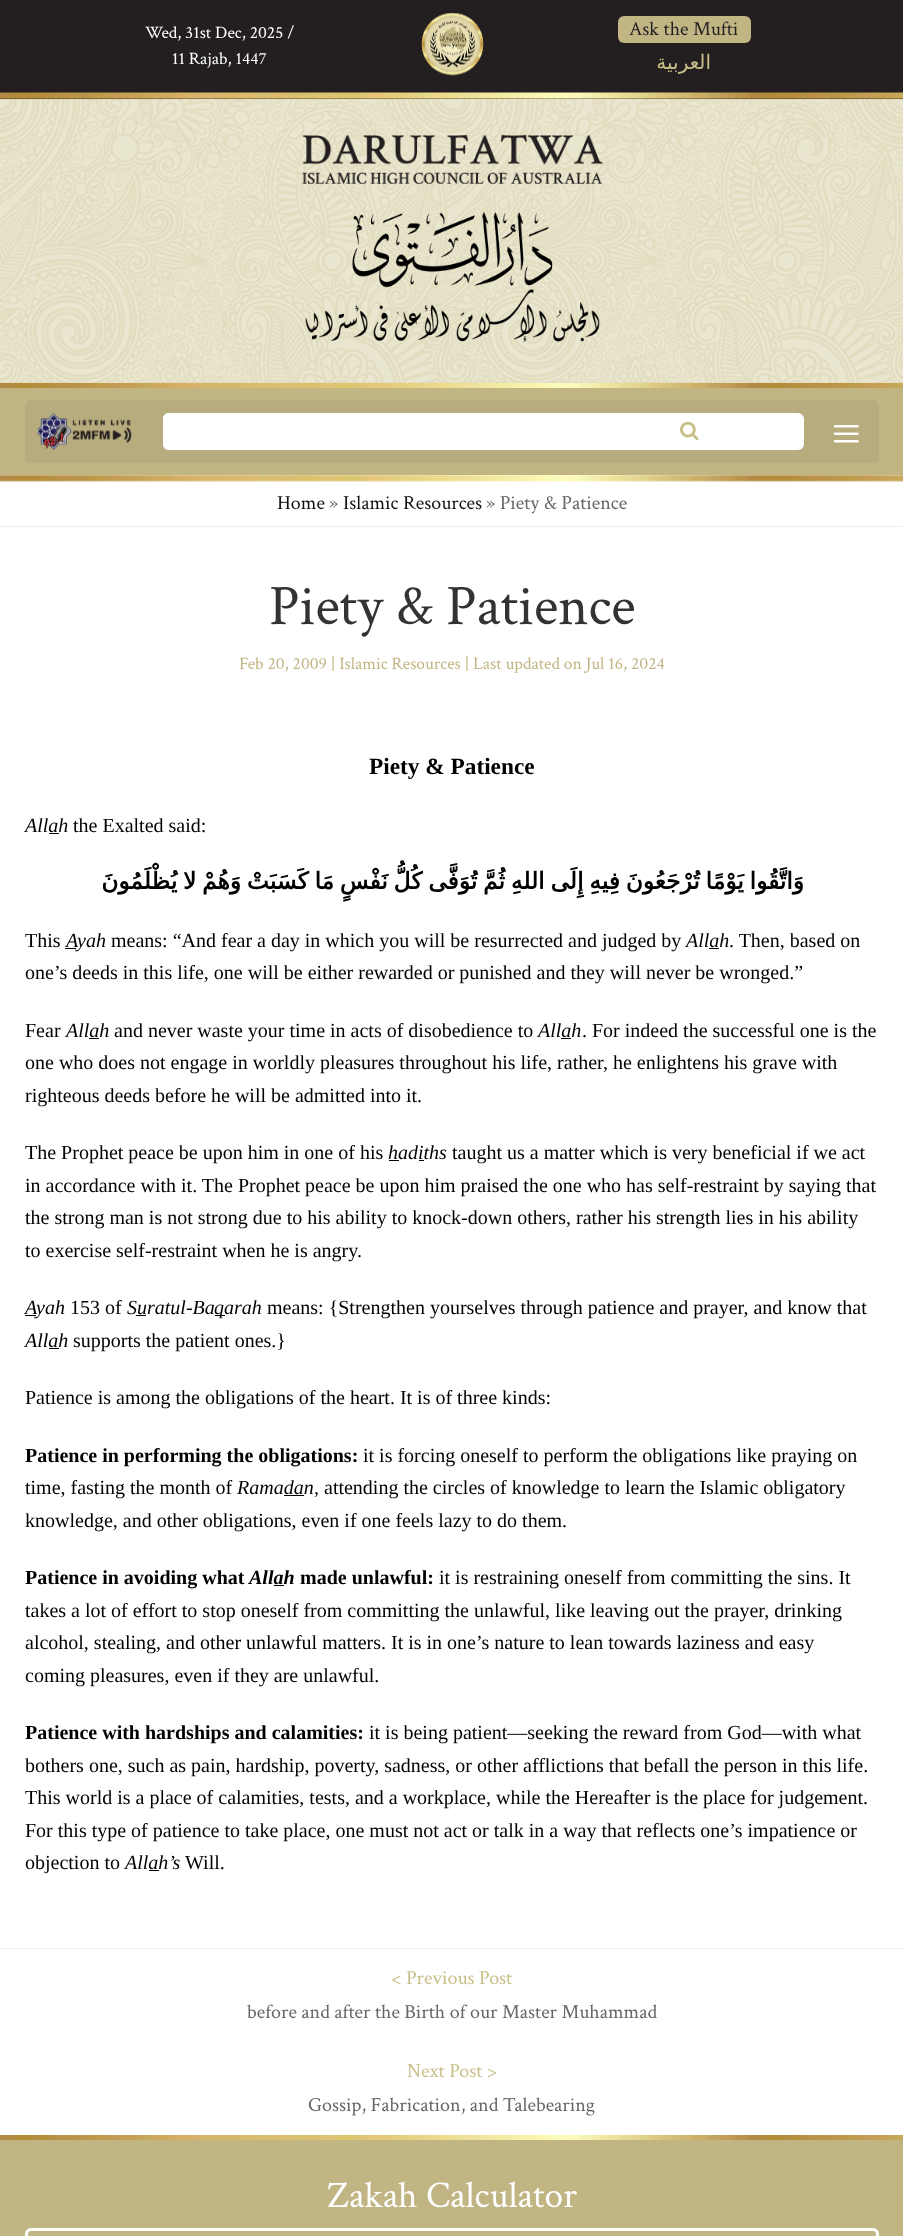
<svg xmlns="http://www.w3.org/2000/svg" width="903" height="2236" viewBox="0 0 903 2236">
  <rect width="100%" height="100%" fill="#fff"/>
  <path d="M0 0h903v99H0z" fill="#231f20"/>
  <image x="421" y="13" width="63" height="63" href="img/1.png"/>
  <rect x="618" y="16" width="133" height="27" rx="6" fill="#c1b584"/>
  <path d="M0 382h903v1H0z" fill="#ded9bb"/>
  <image x="0" y="99" width="903" height="284" href="img/3.png"/>
  <image x="0" y="92" width="903" height="8" href="img/2.png"/>
  <image x="302" y="135" width="301" height="49" href="img/4.png"/>
  <image x="305" y="212" width="295" height="130" href="img/5.png"/>
  <image x="0" y="383" width="903" height="5" href="img/6.png"/>
  <path d="M0 388h903v87H0z" fill="#c1b584"/>
  <rect x="25" y="400" width="854" height="63" rx="6" fill="#b7ac7d"/>
  <image x="37" y="412" width="95" height="38" href="img/7.png"/>
  <rect x="163" y="413" width="641" height="37" rx="6" fill="#fff"/>
  <path d="M169 413H675V450H169C165.5 450 163 447.5 163 444V419C163 415.5 165.5 413 169 413Z" fill="#fff"/>
  <image x="680" y="421" width="19" height="20" href="img/8.png"/>
  <image x="833" y="425" width="26" height="18" href="img/9.png"/>
  <image x="0" y="475" width="903" height="7" href="img/10.png"/>
  <path d="M0 526h903v1H0z" fill="#eee"/>
  <path d="M49 833h10v1H49z" fill="#000"/>
  <path d="M65 948h11v1H65z" fill="#000"/>
  <path d="M709 948h10v1H709z" fill="#000"/>
  <path d="M89 1038h10v1H89z" fill="#000"/>
  <path d="M561 1038h10v1H561z" fill="#000"/>
  <path d="M389 1160h10v1H389z" fill="#000"/>
  <path d="M419 1160h5v1H419z" fill="#000"/>
  <path d="M25 1315h11v1H25z" fill="#000"/>
  <path d="M136 1315h10v1H136z" fill="#000"/>
  <path d="M215 1315h10v1H215z" fill="#000"/>
  <path d="M49 1348h10v1H49z" fill="#000"/>
  <path d="M284 1495h20v1H284z" fill="#000"/>
  <path d="M274 1585h10v1H274z" fill="#000"/>
  <path d="M149 1870h10v1H149z" fill="#000"/>
  <path d="M0 1948h903v1H0z" fill="#eee"/>
  <image x="0" y="2135" width="903" height="5" href="img/11.png"/>
  <path d="M0 2140h903v96H0z" fill="#c1b584"/>
  <rect x="26.5" y="2229.5" width="851" height="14" rx="4.5" fill="none" stroke="#fff" stroke-width="3"/>
  <g font-family="Crimson Text" font-size="17.5" fill="#fff">
    <text x="145" y="38">Wed, 31st Dec, 2025 /</text>
    <text x="172" y="64">11 Rajab, 1447</text>
  </g>
  <text x="629" y="35" font-family="Crimson Text" font-size="20" fill="#231f20">Ask the Mufti</text>
  <text x="711" y="69" font-family="DejaVu Sans" font-size="20" direction="rtl" fill="#c7bf87">العربية</text>
  <text x="277" y="509" font-family="Crimson Text" font-size="20" fill="#111">Home</text>
  <text x="329" y="509" font-family="Crimson Text" font-size="20" fill="#666">»</text>
  <text x="343" y="509" font-family="Crimson Text" font-size="20" fill="#111">Islamic Resources</text>
  <text x="486" y="509" font-family="Crimson Text" font-size="20" fill="#666">» Piety &amp; Patience</text>
  <text x="269" y="624" font-family="Crimson Text" font-size="57.5" fill="#333">Piety &amp; Patience</text>
  <text x="239" y="669" font-family="Crimson Text" font-size="17.5" fill="#c1b584">Feb 20, 2009 | Islamic Resources | Last updated on Jul 16, 2024</text>
  <text x="369" y="774" font-family="Liberation Serif" font-size="23.3" font-weight="bold" fill="#000">Piety &amp; Patience</text>
  <text x="25" y="832" font-family="Liberation Serif" font-size="20" font-style="italic" fill="#000">Allah</text>
  <text x="73" y="832" font-family="Liberation Serif" font-size="20" fill="#000">the Exalted said:</text>
  <text x="804" y="889" word-spacing="-1.6" font-family="DejaVu Sans" font-size="23.3" font-weight="bold" direction="rtl" fill="#000">وَاتَّقُوا يَوْمًا تُرْجَعُونَ فِيهِ إِلَى اللهِ ثُمَّ تُوَفَّى كُلُّ نَفْسٍ مَا كَسَبَتْ وَهُمْ لا يُظْلَمُونَ</text>
  <text x="25" y="947" font-family="Liberation Serif" font-size="20" fill="#000">This</text>
  <g font-family="Liberation Serif" font-size="20" font-style="italic" fill="#000">
    <text x="66" y="947">A</text>
    <text x="77" y="947">yah</text>
  </g>
  <text x="111" y="947" font-family="Liberation Serif" font-size="20" fill="#000">means: “And fear a day in which you will be resurrected and judged by</text>
  <text x="686" y="947" font-family="Liberation Serif" font-size="20" font-style="italic" fill="#000">Allah</text>
  <g font-family="Liberation Serif" font-size="20" fill="#000">
    <text x="729" y="947">. Then, based on</text>
    <text x="25" y="979">one’s deeds in this life, one will be either rewarded or punished and they will never be wronged.”</text>
    <text x="25" y="1037">Fear</text>
  </g>
  <text x="66" y="1037" font-family="Liberation Serif" font-size="20" font-style="italic" fill="#000">Allah</text>
  <text x="114" y="1037" font-family="Liberation Serif" font-size="20" fill="#000">and never waste your time in acts of disobedience to</text>
  <text x="538" y="1037" font-family="Liberation Serif" font-size="20" font-style="italic" fill="#000">Allah</text>
  <g font-family="Liberation Serif" font-size="20" fill="#000">
    <text x="582" y="1037">. For indeed the successful one is the</text>
    <text x="25" y="1069">one who does not engage in worldly pleasures throughout his life, rather, he enlightens his grave with</text>
    <text x="25" y="1102">righteous deeds before he will be admitted into it.</text>
    <text x="25" y="1159">The Prophet peace be upon him in one of his</text>
  </g>
  <text x="388" y="1159" font-family="Liberation Serif" font-size="20" font-style="italic" fill="#000">hadiths</text>
  <g font-family="Liberation Serif" font-size="20" fill="#000">
    <text x="452" y="1159">taught us a matter which is very beneficial if we act</text>
    <text x="25" y="1192">in accordance with it. The Prophet peace be upon him praised the one who has self-restraint by saying that</text>
    <text x="25" y="1224">the strong man is not strong due to his ability to knock-down others, rather his strength lies in his ability</text>
    <text x="25" y="1257">to exercise self-restraint when he is angry.</text>
  </g>
  <g font-family="Liberation Serif" font-size="20" font-style="italic" fill="#000">
    <text x="25" y="1314">A</text>
    <text x="36" y="1314">yah</text>
  </g>
  <text x="70" y="1314" font-family="Liberation Serif" font-size="20" fill="#000">153 of</text>
  <g font-family="Liberation Serif" font-size="20" font-style="italic" fill="#000">
    <text x="127" y="1314">Suratul-Ba</text>
    <text x="214" y="1314">qarah</text>
  </g>
  <text x="267" y="1314" font-family="Liberation Serif" font-size="20" fill="#000">means: {Strengthen yourselves through patience and prayer, and know that</text>
  <text x="25" y="1347" font-family="Liberation Serif" font-size="20" font-style="italic" fill="#000">Allah</text>
  <g font-family="Liberation Serif" font-size="20" fill="#000">
    <text x="73" y="1347">supports the patient ones.}</text>
    <text x="25" y="1404">Patience is among the obligations of the heart. It is of three kinds:</text>
  </g>
  <text x="25" y="1462" font-family="Liberation Serif" font-size="20" font-weight="bold" fill="#000">Patience in performing the obligations:</text>
  <g font-family="Liberation Serif" font-size="20" fill="#000">
    <text x="363" y="1462">it is forcing oneself to perform the obligations like praying on</text>
    <text x="25" y="1494">time, fasting the month of</text>
  </g>
  <text x="237" y="1494" font-family="Liberation Serif" font-size="20" font-style="italic" fill="#000">Ramadan</text>
  <g font-family="Liberation Serif" font-size="20" fill="#000">
    <text x="314" y="1494">, attending the circles of knowledge to learn the Islamic obligatory</text>
    <text x="25" y="1527">knowledge, and other obligations, even if one feels lazy to do them.</text>
  </g>
  <text x="25" y="1584" font-family="Liberation Serif" font-size="20" font-weight="bold" fill="#000">Patience in avoiding what</text>
  <text x="249" y="1584" font-family="Liberation Serif" font-size="20" font-weight="bold" font-style="italic" fill="#000">Allah</text>
  <text x="300" y="1584" font-family="Liberation Serif" font-size="20" font-weight="bold" fill="#000">made unlawful:</text>
  <g font-family="Liberation Serif" font-size="20" fill="#000">
    <text x="439" y="1584">it is restraining oneself from committing the sins. It</text>
    <text x="25" y="1617">takes a lot of effort to stop oneself from committing the unlawful, like leaving out the prayer, drinking</text>
    <text x="25" y="1649">alcohol, stealing, and other unlawful matters. It is in one’s nature to lean towards laziness and easy</text>
    <text x="25" y="1682">coming pleasures, even if they are unlawful.</text>
  </g>
  <text x="25" y="1739" font-family="Liberation Serif" font-size="20" font-weight="bold" fill="#000">Patience with hardships and calamities:</text>
  <g font-family="Liberation Serif" font-size="20" fill="#000">
    <text x="369" y="1739">it is being patient—seeking the reward from God—with what</text>
    <text x="25" y="1772">bothers one, such as pain, hardship, poverty, sadness, or other afflictions that befall the person in this life.</text>
    <text x="25" y="1804">This world is a place of calamities, tests, and a workplace, while the Hereafter is the place for judgement.</text>
    <text x="25" y="1837">For this type of patience to take place, one must not act or talk in a way that reflects one’s impatience or</text>
    <text x="25" y="1869">objection to</text>
  </g>
  <text x="125" y="1869" font-family="Liberation Serif" font-size="20" font-style="italic" fill="#000">Allah’s</text>
  <text x="185" y="1869" font-family="Liberation Serif" font-size="20" fill="#000">Will.</text>
  <text x="391" y="1984" font-family="Crimson Text" font-size="20" fill="#c7bf87">&lt; Previous Post</text>
  <text x="247" y="2018" font-family="Crimson Text" font-size="20" fill="#666">before and after the Birth of our Master Muhammad</text>
  <text x="407" y="2077" font-family="Crimson Text" font-size="20" fill="#c7bf87">Next Post &gt;</text>
  <text x="308" y="2111" font-family="Crimson Text" font-size="20" fill="#666">Gossip, Fabrication, and Talebearing</text>
  <text x="327" y="2207" font-family="Crimson Text" font-size="37.5" fill="#fff">Zakah Calculator</text>
</svg>
